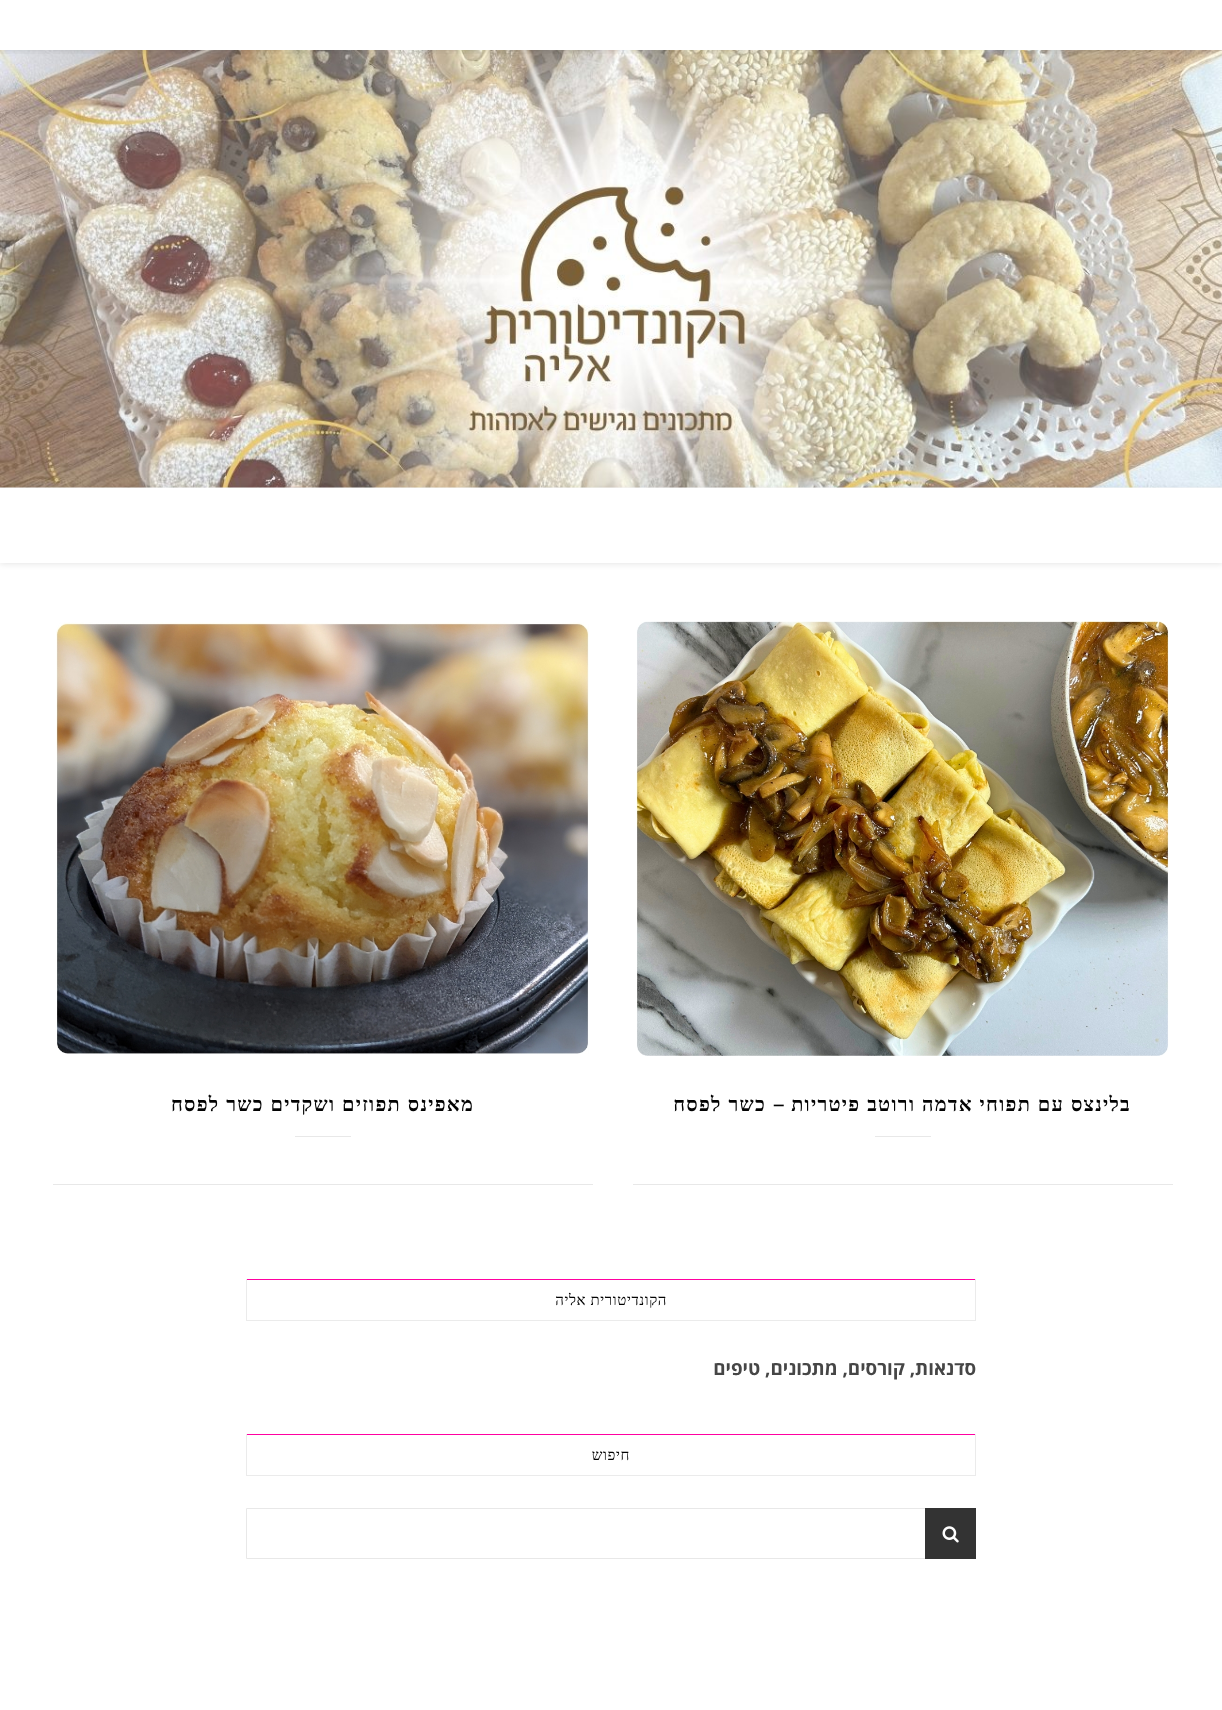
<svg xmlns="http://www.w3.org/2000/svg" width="1222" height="1710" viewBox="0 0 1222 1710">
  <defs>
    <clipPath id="clip1"><path d="M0 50h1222v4H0z"/></clipPath>
  </defs>
  <rect width="100%" height="100%" fill="#fff"/>
  <image x="0" y="50" width="1222" height="438" href="img/1.png"/>
  <g clip-path="url(#clip1)">
    <path d="M0 1h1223v50H0z" fill="#0000001a" filter="blur(3px)"/>
  </g>
  <path d="M0 489h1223v75H0z" fill="#0000001a" filter="blur(3px)"/>
  <path d="M0 488h1222v75H0z" fill="#fff"/>
  <image x="636" y="621" width="533" height="435" href="img/2.png"/>
  <path d="M875 1136h56v1H875z" fill="#e8e8e8"/>
  <path d="M633 1184h540v1H633z" fill="#e8e8e8"/>
  <image x="56" y="622" width="533" height="432" href="img/3.png"/>
  <path d="M295 1136h56v1H295z" fill="#e8e8e8"/>
  <path d="M53 1184h540v1H53z" fill="#e8e8e8"/>
  <path d="M246 1279h730v1H246z" fill="#ff00a1"/>
  <path d="M975 1279h1v42H975z" fill="#ebebeb"/>
  <path d="M246 1320h730v1H246z" fill="#ebebeb"/>
  <path d="M246 1279h1v42H246z" fill="#ebebeb"/>
  <path d="M246 1434h730v1H246z" fill="#ff00a1"/>
  <path d="M975 1434h1v42H975z" fill="#ebebeb"/>
  <path d="M246 1475h730v1H246z" fill="#ebebeb"/>
  <path d="M246 1434h1v42H246z" fill="#ebebeb"/>
  <path d="M246.5 1508.5h729v50H246.5z" fill="none" stroke="#e8e8e8"/>
  <path d="M925 1508h51v51H925z" fill="#333"/>
  <image x="942" y="1526" width="17" height="17" href="img/4.png"/>
  <text x="1131" y="1111" word-spacing="0.5" font-family="Liberation Serif" font-size="20" font-weight="bold" letter-spacing="1.25" direction="rtl" fill="#030303">בלינצס עם תפוחי אדמה ורוטב פיטריות</text>
  <text x="785" y="1111" font-family="Montserrat" font-size="20" font-weight="600" letter-spacing="1.25" direction="rtl" fill="#030303">–</text>
  <g font-family="Liberation Serif" font-size="20" font-weight="bold" letter-spacing="1.25" direction="rtl" fill="#030303">
    <text x="766" y="1111" word-spacing="0.5">כשר לפסח</text>
    <text x="474" y="1111" word-spacing="0.5">מאפינס תפוזים ושקדים כשר לפסח</text>
  </g>
  <text x="667" y="1305" font-family="Liberation Serif" font-size="15" letter-spacing="0.6" direction="rtl" fill="#030303">הקונדיטורית אליה</text>
  <text x="976" y="1375" font-family="Open Sans" font-size="18.75" font-weight="bold" direction="rtl" fill="#464646">סדנאות, קורסים, מתכונים, טיפים</text>
  <text x="630" y="1460" font-family="Liberation Serif" font-size="15" letter-spacing="0.6" direction="rtl" fill="#030303">חיפוש</text>
</svg>
